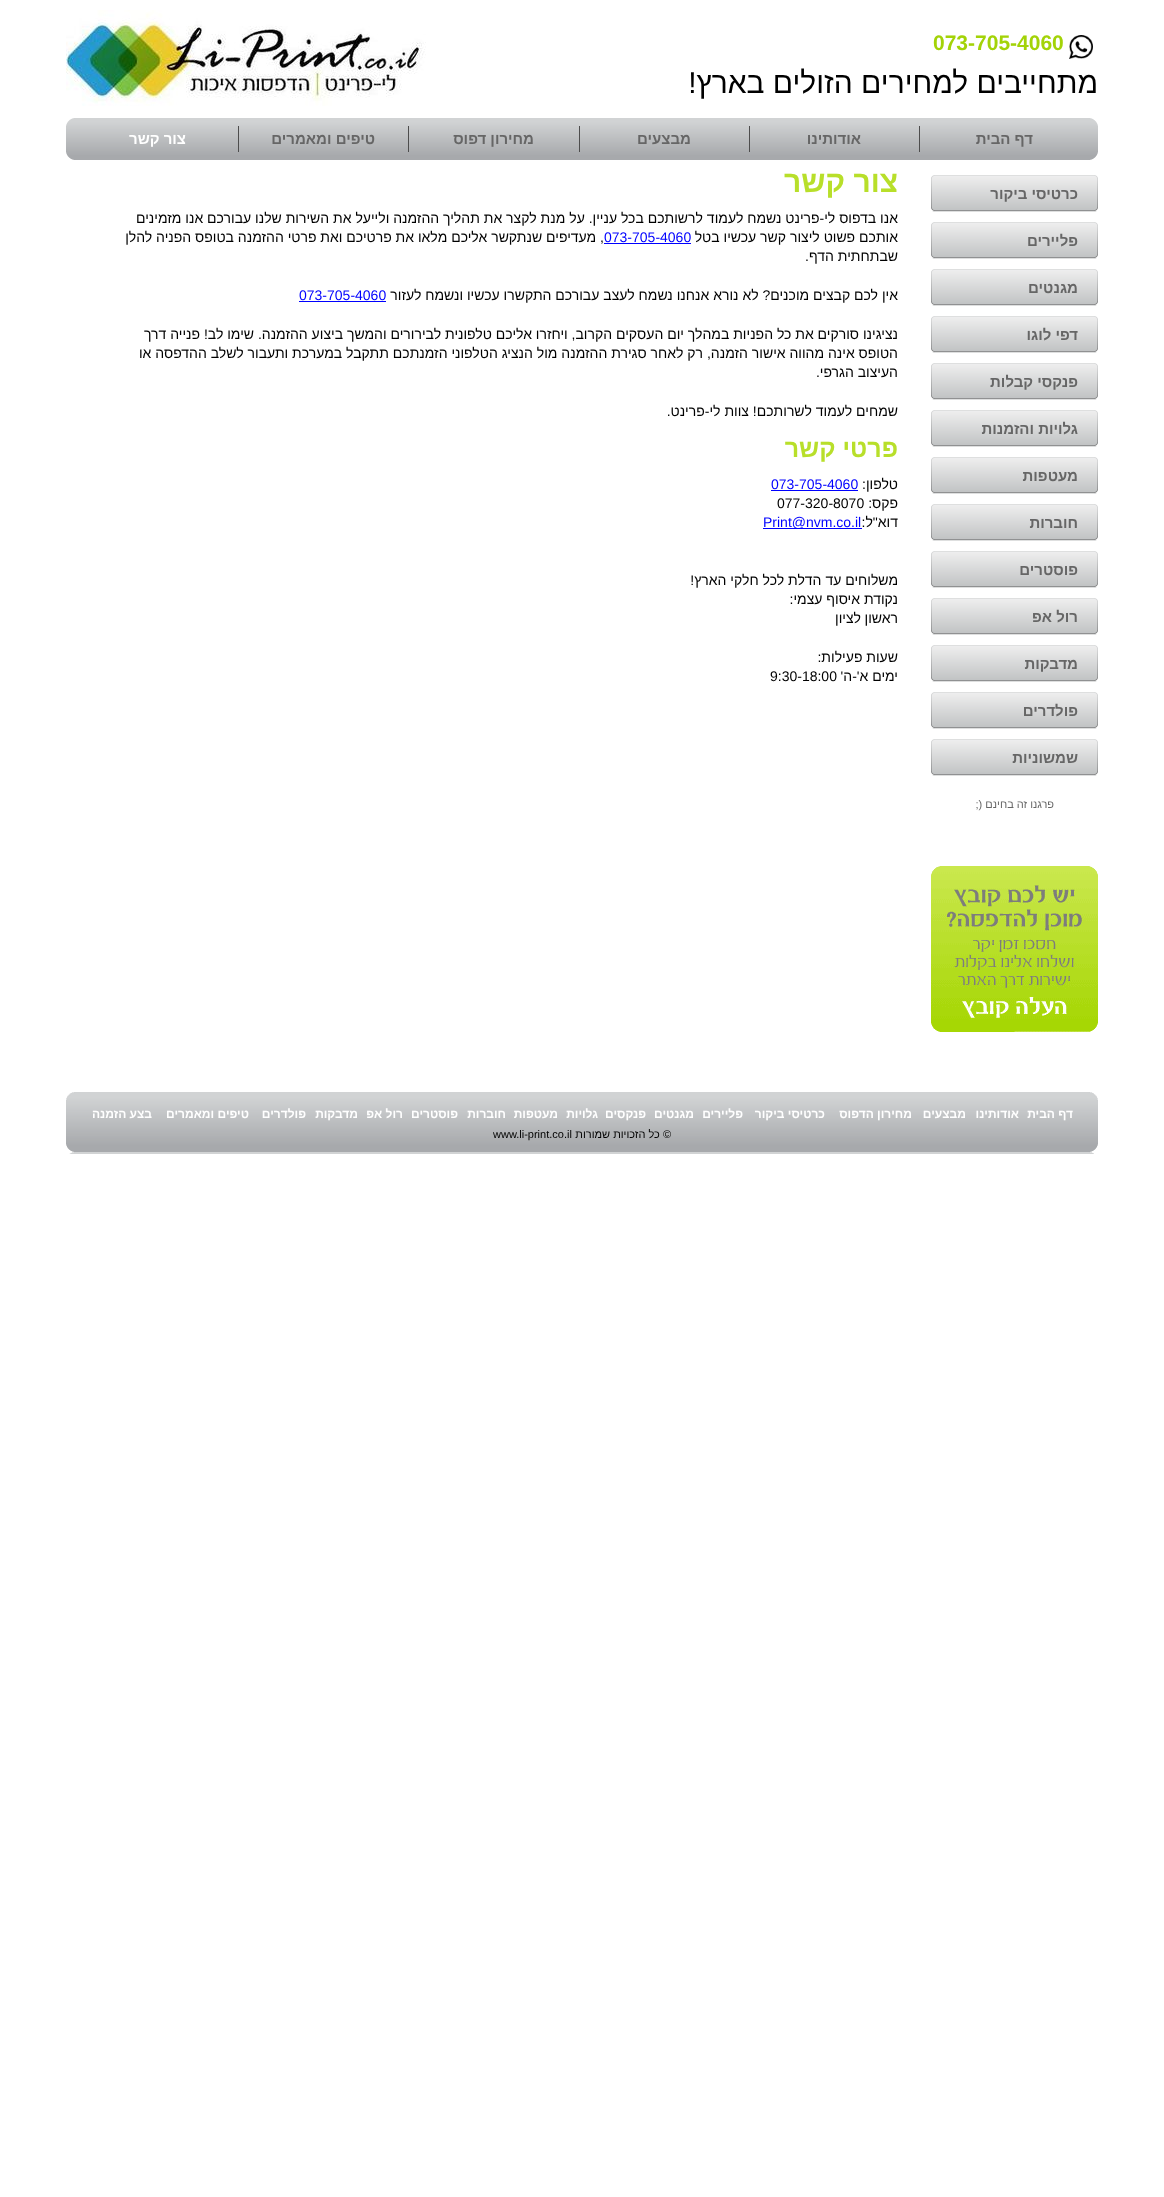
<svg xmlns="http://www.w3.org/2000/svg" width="1164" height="2197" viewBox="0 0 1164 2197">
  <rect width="100%" height="100%" fill="#fff"/>
  <image x="1069" y="35" width="24" height="24" href="img/1.png"/>
  <image x="66" y="10" width="360" height="96" href="img/2.png"/>
  <image x="66" y="118" width="1032" height="42" href="img/3.png"/>
  <path d="M919 126h1v26H919z" fill="#4d4d4d"/>
  <path d="M749 126h1v26H749z" fill="#4d4d4d"/>
  <path d="M579 126h1v26H579z" fill="#4d4d4d"/>
  <path d="M408 126h1v26H408z" fill="#4d4d4d"/>
  <path d="M238 126h1v26H238z" fill="#4d4d4d"/>
  <image x="931" y="175" width="167" height="37" href="img/4.png"/>
  <image x="931" y="222" width="167" height="37" href="img/4.png"/>
  <image x="931" y="269" width="167" height="37" href="img/4.png"/>
  <image x="931" y="316" width="167" height="37" href="img/4.png"/>
  <image x="931" y="363" width="167" height="37" href="img/4.png"/>
  <image x="931" y="410" width="167" height="37" href="img/4.png"/>
  <image x="931" y="457" width="167" height="37" href="img/4.png"/>
  <image x="931" y="504" width="167" height="37" href="img/4.png"/>
  <image x="931" y="551" width="167" height="37" href="img/4.png"/>
  <image x="931" y="598" width="167" height="37" href="img/4.png"/>
  <image x="931" y="645" width="167" height="37" href="img/4.png"/>
  <image x="931" y="692" width="167" height="37" href="img/4.png"/>
  <image x="931" y="739" width="167" height="37" href="img/4.png"/>
  <image x="931" y="866" width="167" height="166" href="img/5.png"/>
  <path d="M604 243h87v1H604z" fill="#00f"/>
  <path d="M299 301h87v1H299z" fill="#00f"/>
  <path d="M771 490h87v1H771z" fill="#00f"/>
  <path d="M763 528h99v1H763z" fill="#00f"/>
  <image x="66" y="1092" width="1032" height="62" href="img/6.png"/>
  <text x="933" y="50" font-family="Liberation Sans" font-size="21" font-weight="bold" fill="#a3d307">073-705-4060</text>
  <text x="1098" y="93" font-family="Liberation Sans" font-size="30" direction="rtl" fill="#000">מתחייבים למחירים הזולים בארץ!</text>
  <g font-family="Liberation Sans" font-size="15" font-weight="bold" direction="rtl" fill="#666">
    <text x="1033" y="144">דף הבית</text>
    <text x="861" y="144">אודותינו</text>
    <text x="691" y="144">מבצעים</text>
    <text x="534" y="144">מחירון דפוס</text>
    <text x="375" y="144">טיפים ומאמרים</text>
  </g>
  <text x="186" y="144" font-family="Liberation Sans" font-size="15" font-weight="bold" direction="rtl" fill="#fff">צור קשר</text>
  <g font-family="Liberation Sans" font-size="15" font-weight="bold" direction="rtl" fill="#666">
    <text x="1078" y="199">כרטיסי ביקור</text>
    <text x="1078" y="246">פליירים</text>
    <text x="1078" y="293">מגנטים</text>
    <text x="1078" y="340">דפי לוגו</text>
    <text x="1078" y="387">פנקסי קבלות</text>
    <text x="1078" y="434">גלויות והזמנות</text>
    <text x="1078" y="481">מעטפות</text>
    <text x="1078" y="528">חוברות</text>
    <text x="1078" y="575">פוסטרים</text>
    <text x="1078" y="622">רול אפ</text>
    <text x="1078" y="669">מדבקות</text>
    <text x="1078" y="716">פולדרים</text>
    <text x="1078" y="763">שמשוניות</text>
  </g>
  <text x="1054" y="808" font-family="Liberation Sans" font-size="11" direction="rtl" fill="#666">פרגנו זה בחינם (;</text>
  <text x="898" y="192" font-family="Liberation Sans" font-size="30" font-weight="bold" direction="rtl" fill="#b8df2a">צור קשר</text>
  <g font-family="Liberation Sans" font-size="14" direction="rtl" fill="#000">
    <text x="898" y="223">אנו בדפוס לי-פרינט נשמח לעמוד לרשותכם בכל עניין. על מנת לקצר את תהליך ההזמנה ולייעל את השירות שלנו עבורכם אנו מזמינים</text>
    <text x="898" y="242">אותכם פשוט ליצור קשר עכשיו בטל</text>
  </g>
  <text x="604" y="242" font-family="Liberation Sans" font-size="14" fill="#00f">073-705-4060</text>
  <g font-family="Liberation Sans" font-size="14" direction="rtl" fill="#000">
    <text x="604" y="242">, מעדיפים שנתקשר אליכם מלאו את פרטיכם ואת פרטי ההזמנה בטופס הפניה להלן</text>
    <text x="898" y="261">שבתחתית הדף.</text>
    <text x="898" y="300">אין לכם קבצים מוכנים? לא נורא אנחנו נשמח לעצב עבורכם התקשרו עכשיו ונשמח לעזור</text>
  </g>
  <text x="299" y="300" font-family="Liberation Sans" font-size="14" fill="#00f">073-705-4060</text>
  <g font-family="Liberation Sans" font-size="14" direction="rtl" fill="#000">
    <text x="898" y="339">נציגינו סורקים את כל הפניות במהלך יום העסקים הקרוב, ויחזרו אליכם טלפונית לבירורים והמשך ביצוע ההזמנה. שימו לב! פנייה דרך</text>
    <text x="898" y="358">הטופס אינה מהווה אישור הזמנה, רק לאחר סגירת ההזמנה מול הנציג הטלפוני הזמנתכם תתקבל במערכת ותעבור לשלב ההדפסה או</text>
    <text x="898" y="377">העיצוב הגרפי.</text>
    <text x="898" y="416">שמחים לעמוד לשרותכם! צוות לי-פרינט.</text>
  </g>
  <text x="898" y="457" font-family="Liberation Sans" font-size="25" font-weight="bold" direction="rtl" fill="#b8df2a">פרטי קשר</text>
  <text x="898" y="489" font-family="Liberation Sans" font-size="14" direction="rtl" fill="#000">טלפון:</text>
  <text x="771" y="489" font-family="Liberation Sans" font-size="14" fill="#00f">073-705-4060</text>
  <text x="898" y="508" font-family="Liberation Sans" font-size="14" direction="rtl" fill="#000">פקס:</text>
  <text x="777" y="508" font-family="Liberation Sans" font-size="14" fill="#000">077-320-8070</text>
  <text x="898" y="527" font-family="Liberation Sans" font-size="14" direction="rtl" fill="#000">דוא"ל:</text>
  <text x="763" y="527" font-family="Liberation Sans" font-size="14" fill="#00f">Print@nvm.co.il</text>
  <g font-family="Liberation Sans" font-size="14" direction="rtl" fill="#000">
    <text x="898" y="585">משלוחים עד הדלת לכל חלקי הארץ!</text>
    <text x="898" y="604">נקודת איסוף עצמי:</text>
    <text x="898" y="623">ראשון</text>
    <text x="861" y="623">לציון</text>
    <text x="898" y="662">שעות פעילות:</text>
    <text x="898" y="681">ימים א'-ה'</text>
  </g>
  <text x="770" y="681" font-family="Liberation Sans" font-size="14" fill="#000">9:30-18:00</text>
  <g font-family="Liberation Sans" font-size="12" font-weight="bold" direction="rtl" fill="#fff">
    <text x="1073" y="1118">דף הבית</text>
    <text x="1019" y="1118">אודותינו</text>
    <text x="966" y="1118">מבצעים</text>
    <text x="912" y="1118">מחירון הדפוס</text>
    <text x="825" y="1118">כרטיסי ביקור</text>
    <text x="743" y="1118">פליירים</text>
    <text x="694" y="1118">מגנטים</text>
    <text x="646" y="1118">פנקסים</text>
    <text x="598" y="1118">גלויות</text>
    <text x="558" y="1118">מעטפות</text>
    <text x="506" y="1118">חוברות</text>
    <text x="458" y="1118">פוסטרים</text>
    <text x="403" y="1118">רול אפ</text>
    <text x="358" y="1118">מדבקות</text>
    <text x="306" y="1118">פולדרים</text>
    <text x="249" y="1118">טיפים ומאמרים</text>
    <text x="152" y="1118">בצע הזמנה</text>
  </g>
  <text x="671" y="1138" font-family="Liberation Sans" font-size="11" direction="rtl" fill="#000">© כל הזכויות שמורות</text>
  <text x="493" y="1138" font-family="Liberation Sans" font-size="11" fill="#000">www.li-print.co.il</text>
</svg>
